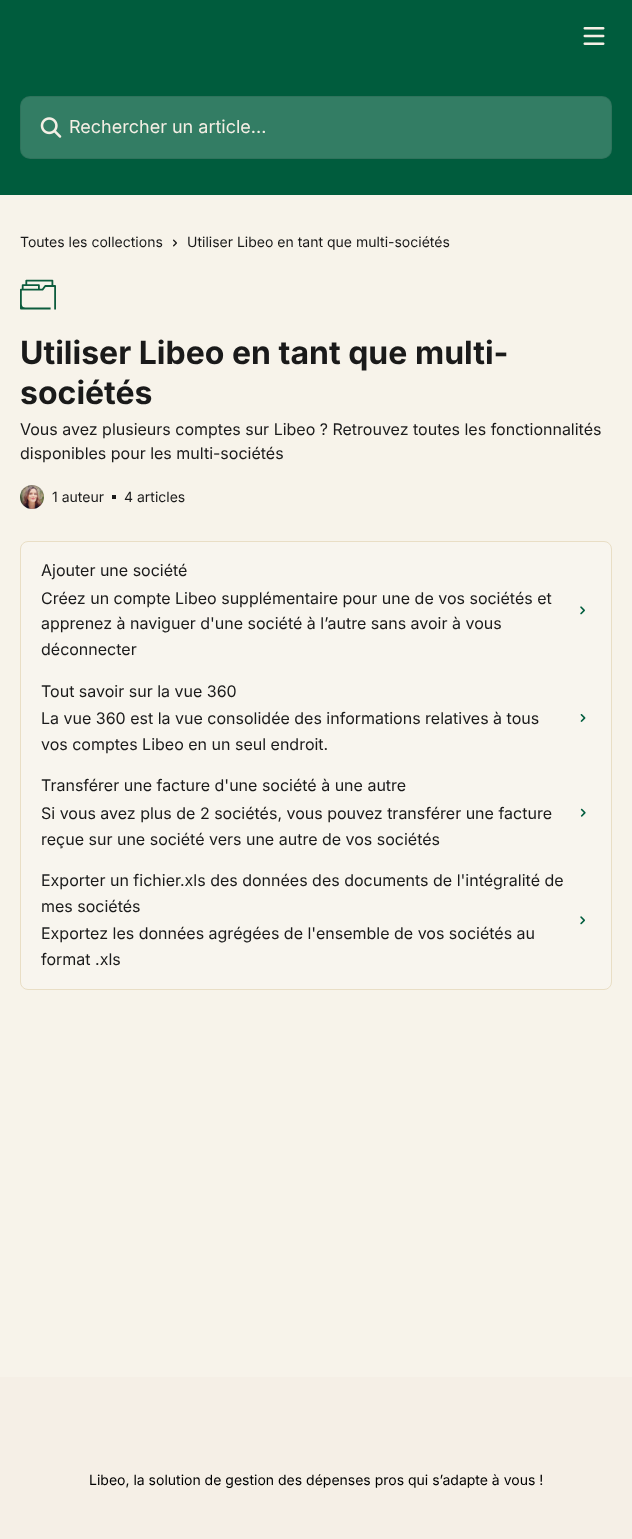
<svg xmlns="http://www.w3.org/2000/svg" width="632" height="1539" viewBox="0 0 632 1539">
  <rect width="100%" height="100%" fill="#f7f3ea"/>
  <path d="M0 0h632v195H0z" fill="#005c3d"/>
  <image x="583" y="27" width="22" height="18" href="img/1.png"/>
  <rect x="20" y="96" width="592" height="63" rx="10" fill="#337d64"/>
  <rect x="20.5" y="96.5" width="591" height="62" rx="9.5" fill="none" stroke="#00000014"/>
  <image x="40" y="117" width="22" height="21" href="img/2.png"/>
  <image x="173" y="239" width="4" height="8" href="img/3.png"/>
  <image x="20" y="279" width="36" height="31" href="img/4.png"/>
  <image x="20" y="485" width="24" height="24" href="img/5.png"/>
  <path d="M112 495h4v4H112z" fill="#1a1a1a"/>
  <rect x="20.5" y="541.5" width="591" height="448" rx="7.5" fill="#f8f5ee" stroke="#e9dec5"/>
  <image x="580" y="606" width="5" height="9" href="img/6.png"/>
  <image x="580" y="714" width="6" height="8" href="img/7.png"/>
  <image x="580" y="808" width="6" height="9" href="img/8.png"/>
  <image x="580" y="916" width="5" height="9" href="img/9.png"/>
  <path d="M0 1377h632v162H0z" fill="#f5efe6"/>
  <text x="69" y="133" font-family="Inter" font-size="18" fill="#f5efe5">Rechercher un article...</text>
  <g font-family="Inter" font-size="14" fill="#1a1a1a">
    <text x="20" y="247">Toutes les collections</text>
    <text x="187" y="247">Utiliser Libeo en tant que multi-sociétés</text>
  </g>
  <g font-family="Inter" font-size="32" font-weight="bold" fill="#1a1a1a">
    <text x="20" y="364">Utiliser Libeo en tant que multi-</text>
    <text x="20" y="404">sociétés</text>
  </g>
  <g font-family="Inter" font-size="16" fill="#1a1a1a">
    <text x="20" y="435">Vous avez plusieurs comptes sur Libeo ? Retrouvez toutes les fonctionnalités</text>
    <text x="20" y="459">disponibles pour les multi-sociétés</text>
  </g>
  <g font-family="Inter" font-size="14" fill="#1a1a1a">
    <text x="52" y="502">1 auteur</text>
    <text x="124" y="502">4 articles</text>
  </g>
  <g font-family="Inter" font-size="16" fill="#1a1a1a">
    <text x="41" y="576">Ajouter une société</text>
    <text x="41" y="604">Créez un compte Libeo supplémentaire pour une de vos sociétés et</text>
    <text x="41" y="629">apprenez à naviguer d'une société à l’autre sans avoir à vous</text>
    <text x="41" y="655">déconnecter</text>
    <text x="41" y="697">Tout savoir sur la vue 360</text>
    <text x="41" y="724">La vue 360 est la vue consolidée des informations relatives à tous</text>
    <text x="41" y="750">vos comptes Libeo en un seul endroit.</text>
    <text x="41" y="791">Transférer une facture d'une société à une autre</text>
    <text x="41" y="819">Si vous avez plus de 2 sociétés, vous pouvez transférer une facture</text>
    <text x="41" y="845">reçue sur une société vers une autre de vos sociétés</text>
    <text x="41" y="886">Exporter un fichier.xls des données des documents de l'intégralité de</text>
    <text x="41" y="912">mes sociétés</text>
    <text x="41" y="939">Exportez les données agrégées de l'ensemble de vos sociétés au</text>
    <text x="41" y="965">format .xls</text>
  </g>
  <text x="89" y="1485" font-family="Inter" font-size="14" fill="#000">Libeo, la solution de gestion des dépenses pros qui s’adapte à vous !</text>
</svg>
